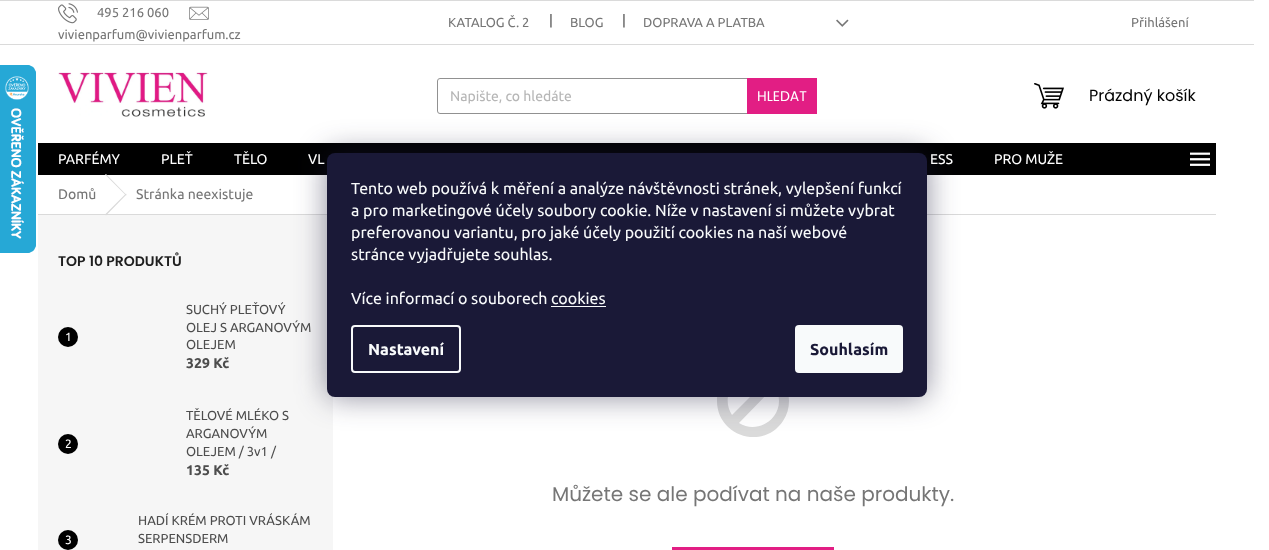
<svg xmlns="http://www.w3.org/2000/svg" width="1269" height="550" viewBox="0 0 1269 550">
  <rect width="100%" height="100%" fill="#fff"/>
  <image x="0" y="65" width="36" height="188" href="img/1.png"/>
  <path d="M0 0h1254v1H0z" fill="#dadada"/>
  <path d="M0 44h1254v1H0z" fill="#dadada"/>
  <image x="58" y="3" width="20" height="21" href="img/2.png"/>
  <image x="189" y="6" width="20" height="14" href="img/3.png"/>
  <image x="836" y="19" width="13" height="8" href="img/4.png"/>
  <image x="58" y="72" width="150" height="45" href="img/5.png"/>
  <rect x="437.5" y="78.5" width="379" height="35" rx="2.5" fill="none" stroke="#919191"/>
  <path d="M747 78h70v36H747z" fill="#e21e84"/>
  <image x="1034" y="83" width="30" height="26" href="img/6.png"/>
  <path d="M38 143h1178v32H38z" fill="#000"/>
  <image x="1190" y="152" width="20" height="14" href="img/7.png"/>
  <path d="M38 214h1178v1H38z" fill="#dadada"/>
  <path d="M105 174.5L106 174L126.5 195L126 195.5Z" fill="#dadada"/>
  <path d="M38 215h295v335H38z" fill="#f6f6f6"/>
  <path d="M126 193.5L126.5 194.5L106 215.5L105 214.5Z" fill="#dadada"/>
  <circle cx="68" cy="337" r="10" fill="#000"/>
  <circle cx="68" cy="444" r="10" fill="#000"/>
  <circle cx="68" cy="540" r="10" fill="#000"/>
  <path d="M779 401C779 396 777 391 774 387L739 423C756 434 779 421 779 401ZM732 415L767 380C744 364 717 392 732 415ZM789 401C789 408 787 415 783 421C763 451 717 436 717 401C717 366 763 352 783 381C787 387 789 394 789 401Z" fill="#dadada"/>
  <path d="M672 547h162v3H672z" fill="#e21e84"/>
  <rect x="327" y="153" width="600" height="244" rx="8" fill="#1b193980" filter="blur(15px)"/>
  <rect x="327" y="153" width="600" height="244" rx="8" fill="#1a1937"/>
  <path d="M551 306h55v1H551z" fill="#f8fafb"/>
  <rect x="352" y="326" width="108" height="46" rx="3" fill="none" stroke="#f8fafb" stroke-width="2"/>
  <rect x="795" y="325" width="108" height="48" rx="4" fill="#f8fafb"/>
  <g font-family="Ubuntu" font-size="13" fill="#767676">
    <text x="97" y="17">495 216 060</text>
    <text x="58" y="39">vivienparfum@vivienparfum.cz</text>
    <text x="448" y="27">KATALOG Č. 2</text>
  </g>
  <text x="549" y="25" font-family="Ubuntu" font-size="14" fill="#4d4d4d">|</text>
  <text x="570" y="27" font-family="Ubuntu" font-size="13" fill="#767676">BLOG</text>
  <text x="622" y="25" font-family="Ubuntu" font-size="14" fill="#4d4d4d">|</text>
  <g font-family="Ubuntu" font-size="13" fill="#767676">
    <text x="643" y="27">DOPRAVA A PLATBA</text>
    <text x="1131" y="27">Přihlášení</text>
  </g>
  <text x="450" y="101" font-family="Ubuntu" font-size="14" fill="#b6b6b6">Napište, co hledáte</text>
  <text x="757" y="101" font-family="Poppins" font-size="14" fill="#fff">HLEDAT</text>
  <text x="1089" y="101" font-family="Poppins" font-size="16" fill="#000">Prázdný košík</text>
  <g font-family="Ubuntu" font-size="14" fill="#fff">
    <text x="58" y="164">PARFÉMY</text>
    <text x="161" y="164">PLEŤ</text>
    <text x="234" y="164">TĚLO</text>
    <text x="308" y="164">VL</text>
    <text x="930" y="164">ESS</text>
    <text x="994" y="164">PRO MUŽE</text>
  </g>
  <g font-family="Ubuntu" font-size="14" fill="#767676">
    <text x="58" y="199">Domů</text>
    <text x="136" y="199">Stránka neexistuje</text>
  </g>
  <text x="58" y="266" font-family="Poppins" font-size="14" font-weight="600" fill="#1f1f1f">TOP 10 PRODUKTŮ</text>
  <text x="65" y="341" font-family="Ubuntu" font-size="12" fill="#fff">1</text>
  <g font-family="Ubuntu" font-size="13" fill="#4d4d4d">
    <text x="186" y="314">SUCHÝ PLEŤOVÝ</text>
    <text x="186" y="332">OLEJ S ARGANOVÝM</text>
    <text x="186" y="349">OLEJEM</text>
  </g>
  <text x="186" y="368" font-family="Ubuntu" font-size="14" font-weight="bold" fill="#4d4d4d">329 Kč</text>
  <text x="65" y="448" font-family="Ubuntu" font-size="12" fill="#fff">2</text>
  <g font-family="Ubuntu" font-size="13" fill="#4d4d4d">
    <text x="186" y="420">TĚLOVÉ MLÉKO S</text>
    <text x="186" y="438">ARGANOVÝM</text>
    <text x="186" y="456">OLEJEM / 3v1 /</text>
  </g>
  <text x="186" y="475" font-family="Ubuntu" font-size="14" font-weight="bold" fill="#4d4d4d">135 Kč</text>
  <text x="65" y="544" font-family="Ubuntu" font-size="12" fill="#fff">3</text>
  <g font-family="Ubuntu" font-size="13" fill="#4d4d4d">
    <text x="138" y="525">HADÍ KRÉM PROTI VRÁSKÁM</text>
    <text x="138" y="543">SERPENSDERM</text>
  </g>
  <text x="552" y="501" font-family="Poppins" font-size="20" fill="#767676">Můžete se ale podívat na naše produkty.</text>
  <g font-family="Ubuntu" font-size="16" fill="#f8fafb">
    <text x="351" y="194">Tento web používá k měření a analýze návštěvnosti stránek, vylepšení funkcí</text>
    <text x="351" y="216">a pro marketingové účely soubory cookie. Níže v nastavení si můžete vybrat</text>
    <text x="351" y="238">preferovanou variantu, pro jaké účely použití cookies na naší webové</text>
    <text x="351" y="260">stránce vyjadřujete souhlas.</text>
    <text x="351" y="304">Více informací o souborech cookies</text>
  </g>
  <text x="368" y="355" font-family="Ubuntu" font-size="16" font-weight="bold" fill="#f8fafb">Nastavení</text>
  <text x="810" y="355" font-family="Ubuntu" font-size="16" font-weight="bold" fill="#1a1937">Souhlasím</text>
</svg>
